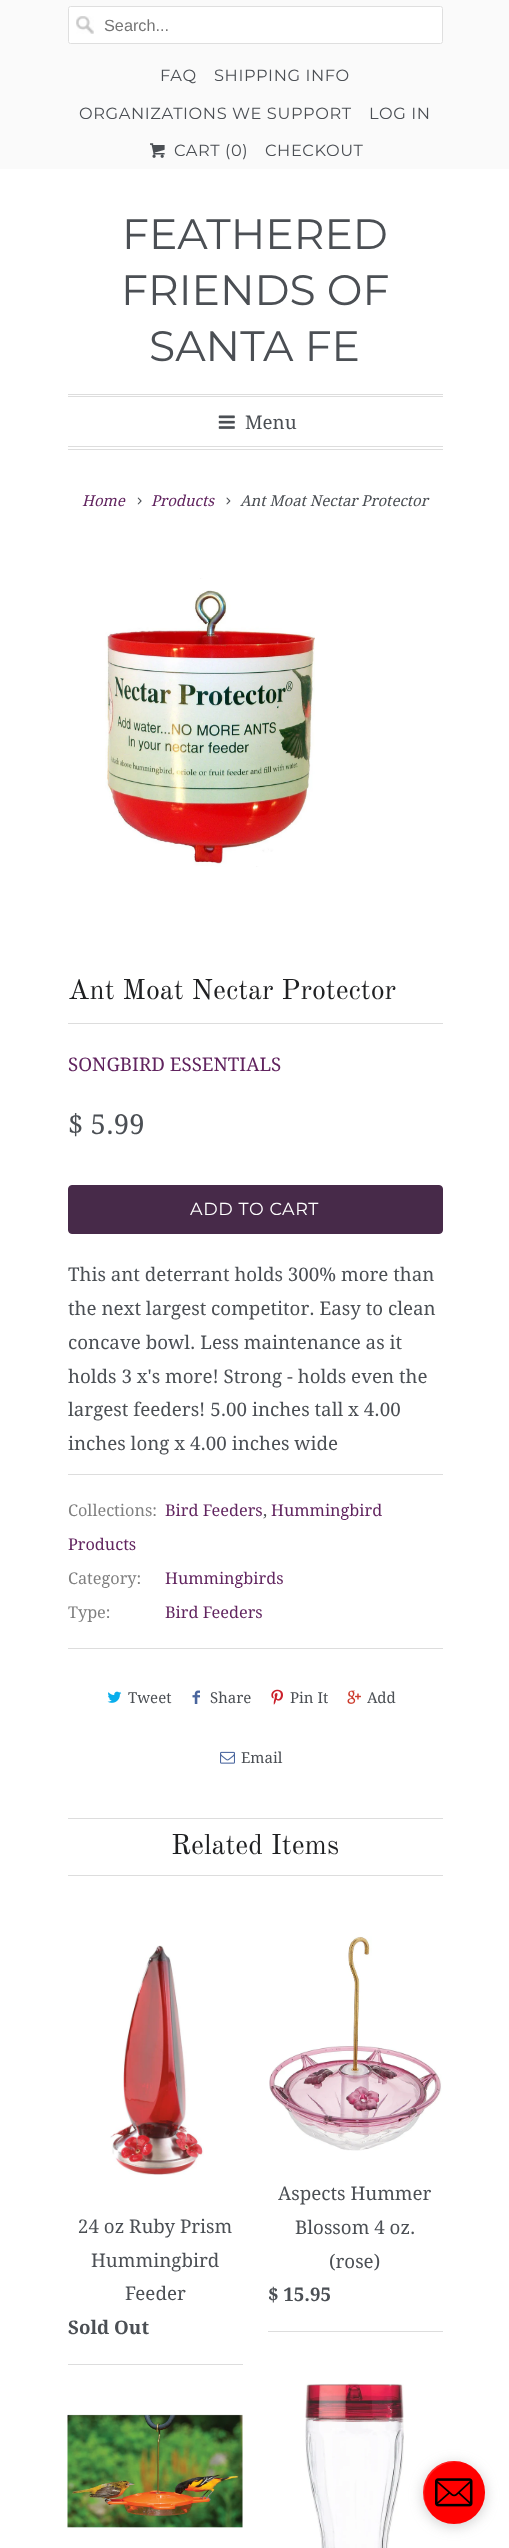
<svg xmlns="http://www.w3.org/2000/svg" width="509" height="2548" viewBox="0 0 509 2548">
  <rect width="100%" height="100%" fill="#fff"/>
  <path d="M0 0h509v169H0z" fill="#fafafa"/>
  <rect x="68" y="6" width="375" height="38" rx="2.5" fill="#fff"/>
  <image x="76" y="16" width="18" height="18" href="img/1.png"/>
  <rect x="68.5" y="6.5" width="374" height="37" rx="2" fill="none" stroke="#dfdfdf"/>
  <image x="150" y="143" width="15" height="15" href="img/2.png"/>
  <path d="M68 394h375v1H68z" fill="#ddd"/>
  <path d="M68 396h375v1H68z" fill="#ddd"/>
  <path d="M68 446h375v1H68z" fill="#ddd"/>
  <path d="M68 449h375v1H68z" fill="#ddd"/>
  <image x="218" y="415" width="17" height="14" href="img/3.png"/>
  <image x="137" y="497" width="5" height="8" href="img/4.png"/>
  <image x="226" y="497" width="5" height="8" href="img/5.png"/>
  <image x="105" y="578" width="210" height="289" href="img/6.png"/>
  <path d="M68 1023h375v1H68z" fill="#ddd"/>
  <rect x="68.5" y="1185.5" width="374" height="48" rx="3.5" fill="#472a49" stroke="#472a49"/>
  <path d="M68 1474h375v1H68z" fill="#ddd"/>
  <path d="M68 1648h375v1H68z" fill="#ddd"/>
  <image x="107" y="1691" width="15" height="12" href="img/7.png"/>
  <image x="192" y="1690" width="8" height="14" href="img/8.png"/>
  <image x="271" y="1689" width="12" height="16" href="img/9.png"/>
  <image x="347" y="1690" width="14" height="14" href="img/10.png"/>
  <image x="220" y="1751" width="15" height="13" href="img/11.png"/>
  <path d="M68 1818h375v1H68z" fill="#ddd"/>
  <path d="M68 1875h375v1H68z" fill="#ddd"/>
  <path d="M68 2364h175v1H68z" fill="#ddd"/>
  <image x="110" y="1945" width="94" height="230" href="img/12.png"/>
  <path d="M268 2331h175v1H268z" fill="#ddd"/>
  <image x="269" y="1936" width="173" height="215" href="img/13.png"/>
  <image x="67" y="2414" width="176" height="114" href="img/14.png"/>
  <image x="305" y="2383" width="99" height="165" href="img/15.png"/>
  <rect x="423" y="2464" width="62" height="62" rx="31" fill="#80808066" filter="blur(7px)"/>
  <rect x="423" y="2461" width="62" height="63" rx="31" fill="#f00"/>
  <path d="M455 2462C465 2462 473 2466 479 2474C468 2459 445 2457 432 2470C419 2483 420 2505 434 2516C414 2498 427 2462 455 2462Z" fill="#ffffff26"/>
  <image x="435" y="2478" width="38" height="29" href="img/16.png"/>
  <text x="104" y="31" font-family="Liberation Sans" font-size="16.25" fill="#757575">Search...</text>
  <g font-family="Montserrat" font-size="16.25" letter-spacing="0.6" fill="#4b4f54">
    <text x="160" y="81">FAQ</text>
    <text x="214" y="81">SHIPPING INFO</text>
    <text x="79" y="119">ORGANIZATIONS WE SUPPORT</text>
    <text x="369" y="119">LOG IN</text>
    <text x="174" y="156">CART (0)</text>
    <text x="265" y="156">CHECKOUT</text>
  </g>
  <g font-family="Montserrat" font-size="42.5" fill="#4b4f54">
    <text x="122" y="249">FEATHERED</text>
    <text x="121" y="305">FRIENDS OF</text>
    <text x="149" y="361">SANTA FE</text>
  </g>
  <text x="245" y="429" font-family="Droid Serif" font-size="18.75" fill="#4b4f54">Menu</text>
  <g font-family="Droid Serif" font-size="15" font-style="italic" fill="#61245f">
    <text x="82" y="506">Home</text>
    <text x="151" y="506">Products</text>
  </g>
  <text x="240" y="506" font-family="Droid Serif" font-size="15" font-style="italic" fill="#4b4f54">Ant Moat Nectar Protector</text>
  <text x="68" y="999" font-family="Old Standard TT" font-size="28.1" fill="#1f2022">Ant Moat Nectar Protector</text>
  <text x="68" y="1071" font-family="Droid Serif" font-size="18.75" fill="#61245f">SONGBIRD ESSENTIALS</text>
  <text x="68" y="1134" font-family="Droid Serif" font-size="27.5" fill="#4b4f54">$ 5.99</text>
  <text x="190" y="1215" font-family="Montserrat" font-size="17.5" letter-spacing="0.6" fill="#fff">ADD TO CART</text>
  <g font-family="Droid Serif" font-size="18.75" fill="#4b4f54">
    <text x="68" y="1281">This ant deterrant holds 300% more than</text>
    <text x="68" y="1315">the next largest competitor. Easy to clean</text>
    <text x="68" y="1349">concave bowl. Less maintenance as it</text>
    <text x="68" y="1383">holds 3 x's more! Strong - holds even the</text>
    <text x="68" y="1416">largest feeders! 5.00 inches tall x 4.00</text>
    <text x="68" y="1450">inches long x 4.00 inches wide</text>
  </g>
  <text x="68" y="1516" font-family="Droid Serif" font-size="16.25" fill="#808080">Collections:</text>
  <text x="165" y="1516" font-family="Droid Serif" font-size="16.25" fill="#61245f">Bird Feeders</text>
  <text x="263" y="1516" font-family="Droid Serif" font-size="16.25" fill="#4b4f54">,</text>
  <g font-family="Droid Serif" font-size="16.25" fill="#61245f">
    <text x="271" y="1516">Hummingbird</text>
    <text x="68" y="1550">Products</text>
  </g>
  <text x="68" y="1584" font-family="Droid Serif" font-size="16.25" fill="#808080">Category:</text>
  <text x="165" y="1584" font-family="Droid Serif" font-size="16.25" fill="#61245f">Hummingbirds</text>
  <text x="68" y="1618" font-family="Droid Serif" font-size="16.25" fill="#808080">Type:</text>
  <text x="165" y="1618" font-family="Droid Serif" font-size="16.25" fill="#61245f">Bird Feeders</text>
  <g font-family="Droid Serif" font-size="15" fill="#4b4f54">
    <text x="128" y="1703">Tweet</text>
    <text x="210" y="1703">Share</text>
    <text x="290" y="1703">Pin It</text>
    <text x="367" y="1703">Add</text>
    <text x="241" y="1763">Email</text>
  </g>
  <text x="171" y="1854" font-family="Old Standard TT" font-size="28.1" fill="#1f2022">Related Items</text>
  <g font-family="Droid Serif" font-size="18.75" fill="#4b4f54">
    <text x="78" y="2233">24 oz Ruby Prism</text>
    <text x="91" y="2267">Hummingbird</text>
    <text x="125" y="2300">Feeder</text>
  </g>
  <text x="68" y="2334" font-family="Droid Serif" font-size="18.75" font-weight="bold" fill="#4b4f54">Sold Out</text>
  <g font-family="Droid Serif" font-size="18.75" fill="#4b4f54">
    <text x="278" y="2200">Aspects Hummer</text>
    <text x="295" y="2234">Blossom 4 oz.</text>
    <text x="329" y="2268">(rose)</text>
  </g>
  <text x="268" y="2301" font-family="Droid Serif" font-size="18.75" font-weight="bold" fill="#4b4f54">$ 15.95</text>
</svg>
